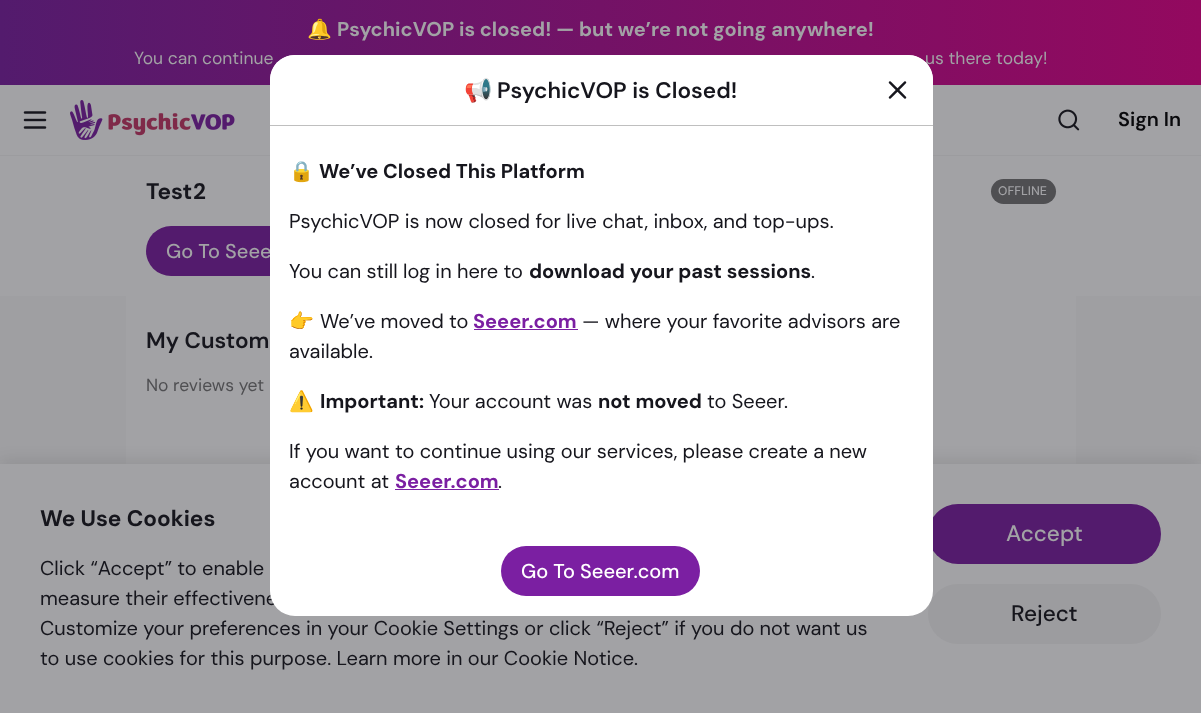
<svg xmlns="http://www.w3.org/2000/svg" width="1201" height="713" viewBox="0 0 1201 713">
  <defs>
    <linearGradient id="g1" gradientUnits="userSpaceOnUse" x1="0" y1="43" x2="1201" y2="42"><stop offset="0" stop-color="#531b6d"/><stop offset="1" stop-color="#93095f"/></linearGradient>
  </defs>
  <rect width="100%" height="100%" fill="#9f9fa2"/>
  <path d="M0 85h1201v70H0z" fill="#a2a2a5"/>
  <path d="M0 0h1201v85H0z" fill="url(#g1)"/>
  <path d="M0 155h1201v1H0z" fill="#9c9c9f"/>
  <image x="23" y="111" width="24" height="18" href="img/1.png"/>
  <image x="70" y="100" width="165" height="40" href="img/2.png"/>
  <image x="1058" y="109" width="22" height="22" href="img/3.png"/>
  <path d="M0 156h1201v140H0z" fill="#a2a2a5"/>
  <rect x="991" y="179" width="65" height="25" rx="12.5" fill="#4f4f52"/>
  <rect x="146" y="226" width="198" height="50" rx="25" fill="#531b6d"/>
  <path d="M126 296h950v168H126z" fill="#a2a2a5"/>
  <path d="M0 461h1201v250H0z" fill="#09090c1a" filter="blur(8px)"/>
  <path d="M0 464h1201v249H0z" fill="#a2a2a5"/>
  <rect x="928" y="504" width="233" height="60" rx="30" fill="#531b6d"/>
  <rect x="928" y="584" width="233" height="60" rx="30" fill="#9c9c9f"/>
  <text x="307" y="36" font-family="Noto Color Emoji" font-size="20" font-weight="bold" fill="#a2a2a5">🔔</text>
  <text x="337" y="36" font-family="'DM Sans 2'" font-size="20" font-weight="bold" fill="#a2a2a5">PsychicVOP is closed!</text>
  <text x="556" y="36" font-family="'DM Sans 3'" font-size="20" font-weight="bold" fill="#a2a2a5">—</text>
  <text x="579" y="36" font-family="'DM Sans 2'" font-size="20" font-weight="bold" fill="#a2a2a5">but we’re not going anywhere!</text>
  <g font-family="DM Sans" font-size="17.5" fill="#a2a2a5">
    <text x="134" y="64">You can continue</text>
    <text x="925" y="64">us there today!</text>
  </g>
  <text x="1118" y="126" font-family="'DM Sans 2'" font-size="20" font-weight="600" fill="#09090c">Sign In</text>
  <text x="146" y="199" font-family="DM Sans" font-size="22.5" font-weight="bold" fill="#16161d">Test2</text>
  <text x="998" y="195" font-family="DM Sans" font-size="12.5" font-weight="500" fill="#a2a2a5">OFFLINE</text>
  <text x="166" y="258" font-family="'DM Sans 2'" font-size="20" font-weight="500" fill="#a2a2a5">Go To Seee</text>
  <text x="146" y="348" font-family="DM Sans" font-size="22.5" font-weight="600" fill="#16161d">My Custom</text>
  <text x="146" y="391" font-family="DM Sans" font-size="17.5" fill="#4f4f52">No reviews yet</text>
  <text x="40" y="526" font-family="DM Sans" font-size="22.5" font-weight="bold" fill="#16161d">We Use Cookies</text>
  <g font-family="'DM Sans 2'" font-size="20" fill="#16161d">
    <text x="40" y="575">Click “Accept” to enable</text>
    <text x="40" y="605">measure their effectivene</text>
  </g>
  <rect x="270" y="55" width="663" height="561" rx="25" fill="#fff"/>
  <path d="M295 55H908C922 55 933 66 933 80V125H270V80C270 66 281 55 295 55Z" fill="#fff"/>
  <image x="888" y="81" width="19" height="18" href="img/4.png"/>
  <text x="497" y="98" font-family="DM Sans" font-size="22.5" font-weight="600" fill="#16161d">PsychicVOP is Closed!</text>
  <text x="464" y="98" font-family="Noto Color Emoji" font-size="22.5" font-weight="bold" fill="#16161d">📢</text>
  <path d="M270 125h663v1H270z" fill="#bfbfbf"/>
  <rect x="501" y="546" width="199" height="50" rx="25" fill="#7b1fa2"/>
  <text x="521" y="578" font-family="'DM Sans 2'" font-size="20" font-weight="500" fill="#fff">Go To Seeer.com</text>
  <text x="498" y="488" font-family="'DM Sans 2'" font-size="20" fill="#16161d">.</text>
  <text x="395" y="488" font-family="'DM Sans 2'" font-size="20" font-weight="bold" fill="#7b1fa2">Seeer.com</text>
  <path d="M395 489h104v1H395z" fill="#7b1fa2"/>
  <g font-family="'DM Sans 2'" font-size="20" fill="#16161d">
    <text x="289" y="488">account at</text>
    <text x="289" y="458">If you want to continue using our services, please create a new</text>
    <text x="707" y="408">to Seeer.</text>
  </g>
  <text x="598" y="408" font-family="'DM Sans 2'" font-size="20" font-weight="bold" fill="#16161d">not moved</text>
  <text x="429" y="408" font-family="'DM Sans 2'" font-size="20" fill="#16161d">Your account was</text>
  <text x="320" y="408" font-family="'DM Sans 2'" font-size="20" font-weight="bold" fill="#16161d">Important:</text>
  <text x="289" y="408" font-family="Noto Color Emoji" font-size="20" fill="#16161d">⚠️</text>
  <g font-family="'DM Sans 2'" font-size="20" fill="#16161d">
    <text x="289" y="358">available.</text>
    <text x="582" y="328">— where your favorite advisors are</text>
  </g>
  <text x="473" y="328" font-family="'DM Sans 2'" font-size="20" font-weight="bold" fill="#7b1fa2">Seeer.com</text>
  <path d="M474 329h104v1H474z" fill="#7b1fa2"/>
  <text x="320" y="328" font-family="'DM Sans 2'" font-size="20" fill="#16161d">We’ve moved to</text>
  <text x="289" y="328" font-family="Noto Color Emoji" font-size="20" fill="#16161d">👉</text>
  <text x="811" y="278" font-family="'DM Sans 2'" font-size="20" fill="#16161d">.</text>
  <text x="529" y="278" font-family="'DM Sans 2'" font-size="20" font-weight="bold" fill="#16161d">download your past sessions</text>
  <g font-family="'DM Sans 2'" font-size="20" fill="#16161d">
    <text x="289" y="278">You can still log in here to</text>
    <text x="289" y="228">PsychicVOP is now closed for live chat, inbox, and top-ups.</text>
  </g>
  <text x="319" y="178" font-family="'DM Sans 2'" font-size="20" font-weight="bold" fill="#16161d">We’ve Closed This Platform</text>
  <text x="289" y="178" font-family="Noto Color Emoji" font-size="20" font-weight="bold" fill="#16161d">🔒</text>
  <g font-family="'DM Sans 2'" font-size="20" fill="#16161d">
    <text x="40" y="635">Customize your preferences in your Cookie Settings or click “Reject” if you do not want us</text>
    <text x="40" y="665">to use cookies for this purpose. Learn more in our Cookie Notice.</text>
  </g>
  <text x="1006" y="541" font-family="'DM Sans 3'" font-size="22.5" font-weight="500" fill="#a2a2a5">Accept</text>
  <text x="1011" y="621" font-family="'DM Sans 3'" font-size="22.5" font-weight="500" fill="#16161d">Reject</text>
</svg>
